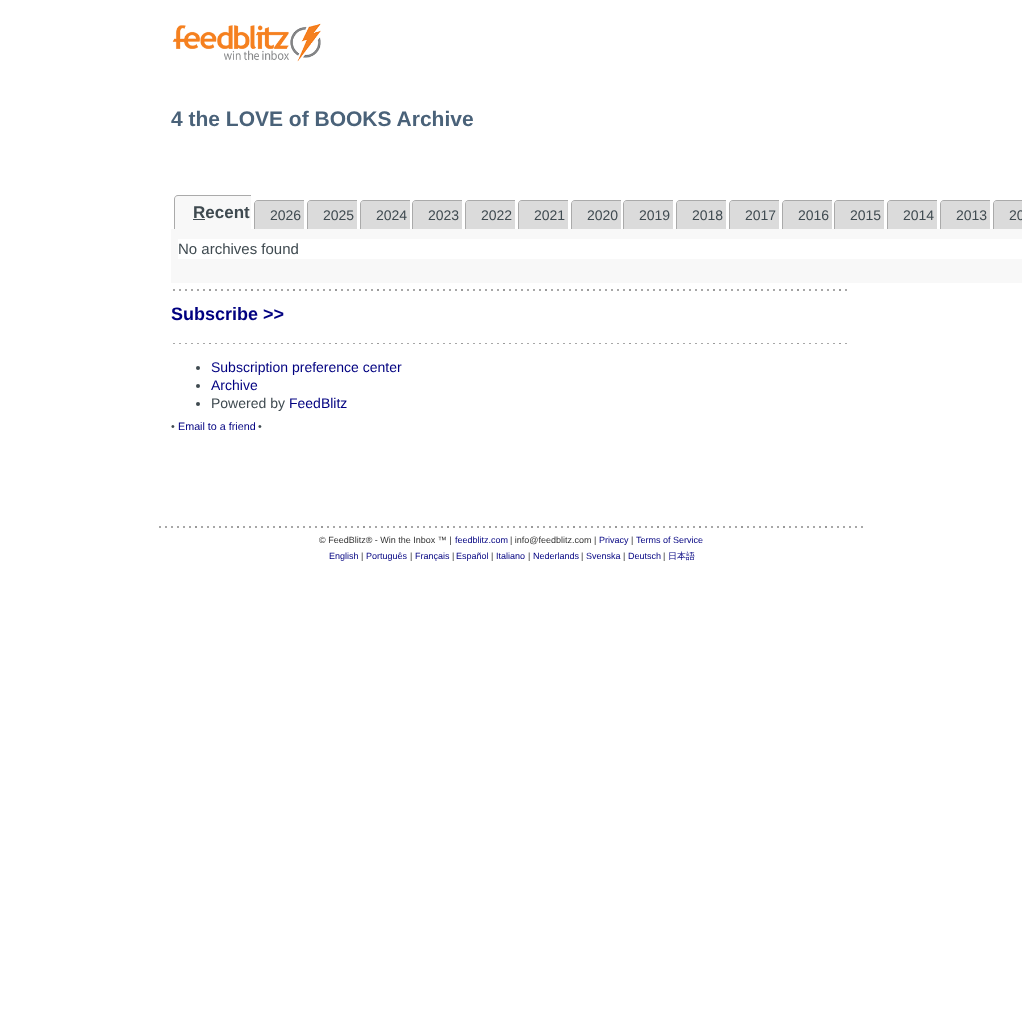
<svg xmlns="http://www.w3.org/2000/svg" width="1022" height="1011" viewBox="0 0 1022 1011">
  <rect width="100%" height="100%" fill="#fff"/>
  <image x="172" y="23" width="149" height="39" href="img/1.png"/>
  <path d="M178 196H263C264.5 196 266 197.5 266 199V229H175V199C175 197.5 176.5 196 178 196Z" fill="#f8f8f8"/>
  <path d="M178 195H263C265 195 267 197 267 199V229H174V199C174 197 176 195 178 195ZM178 196H263C265 196 266 197 266 199V229H175V199C175 197 176 196 178 196Z" fill="#aaa" fill-rule="evenodd"/>
  <path d="M193 219h12v1H193z" fill="#3f4a50"/>
  <path d="M251 195h16v34H251z" fill="#fff"/>
  <path d="M258 201H313C314.5 201 316 202.5 316 204V229H255V204C255 202.5 256.5 201 258 201Z" fill="#dbdbdb"/>
  <path d="M258 200H313C315 200 317 202 317 204V229H254V204C254 202 256 200 258 200ZM258 201H313C315 201 316 202 316 204V229H255V204C255 202 256 201 258 201Z" fill="#aaa" fill-rule="evenodd"/>
  <path d="M304 200h13v29H304z" fill="#fff"/>
  <path d="M311 201H366C367.5 201 369 202.5 369 204V229H308V204C308 202.5 309.5 201 311 201Z" fill="#dbdbdb"/>
  <path d="M311 200H366C368 200 370 202 370 204V229H307V204C307 202 309 200 311 200ZM311 201H366C368 201 369 202 369 204V229H308V204C308 202 309 201 311 201Z" fill="#aaa" fill-rule="evenodd"/>
  <path d="M357 200h13v29H357z" fill="#fff"/>
  <path d="M364 201H419C420.5 201 422 202.5 422 204V229H361V204C361 202.5 362.5 201 364 201Z" fill="#dbdbdb"/>
  <path d="M364 200H419C421 200 423 202 423 204V229H360V204C360 202 362 200 364 200ZM364 201H419C421 201 422 202 422 204V229H361V204C361 202 362 201 364 201Z" fill="#aaa" fill-rule="evenodd"/>
  <path d="M410 200h13v29H410z" fill="#fff"/>
  <path d="M416 201H472C473.5 201 475 202.5 475 204V229H413V204C413 202.5 414.5 201 416 201Z" fill="#dbdbdb"/>
  <path d="M416 200H472C474 200 476 202 476 204V229H412V204C412 202 414 200 416 200ZM416 201H472C474 201 475 202 475 204V229H413V204C413 202 414 201 416 201Z" fill="#aaa" fill-rule="evenodd"/>
  <path d="M462 200h14v29H462z" fill="#fff"/>
  <path d="M469 201H524C525.5 201 527 202.5 527 204V229H466V204C466 202.5 467.5 201 469 201Z" fill="#dbdbdb"/>
  <path d="M469 200H524C526 200 528 202 528 204V229H465V204C465 202 467 200 469 200ZM469 201H524C526 201 527 202 527 204V229H466V204C466 202 467 201 469 201Z" fill="#aaa" fill-rule="evenodd"/>
  <path d="M515 200h13v29H515z" fill="#fff"/>
  <path d="M522 201H577C578.5 201 580 202.5 580 204V229H519V204C519 202.5 520.5 201 522 201Z" fill="#dbdbdb"/>
  <path d="M522 200H577C579 200 581 202 581 204V229H518V204C518 202 520 200 522 200ZM522 201H577C579 201 580 202 580 204V229H519V204C519 202 520 201 522 201Z" fill="#aaa" fill-rule="evenodd"/>
  <path d="M568 200h13v29H568z" fill="#fff"/>
  <path d="M575 201H630C631.5 201 633 202.5 633 204V229H572V204C572 202.5 573.5 201 575 201Z" fill="#dbdbdb"/>
  <path d="M575 200H630C632 200 634 202 634 204V229H571V204C571 202 573 200 575 200ZM575 201H630C632 201 633 202 633 204V229H572V204C572 202 573 201 575 201Z" fill="#aaa" fill-rule="evenodd"/>
  <path d="M621 200h13v29H621z" fill="#fff"/>
  <path d="M627 201H683C684.5 201 686 202.5 686 204V229H624V204C624 202.5 625.5 201 627 201Z" fill="#dbdbdb"/>
  <path d="M627 200H683C685 200 687 202 687 204V229H623V204C623 202 625 200 627 200ZM627 201H683C685 201 686 202 686 204V229H624V204C624 202 625 201 627 201Z" fill="#aaa" fill-rule="evenodd"/>
  <path d="M673 200h14v29H673z" fill="#fff"/>
  <path d="M680 201H735C736.5 201 738 202.5 738 204V229H677V204C677 202.5 678.5 201 680 201Z" fill="#dbdbdb"/>
  <path d="M680 200H735C737 200 739 202 739 204V229H676V204C676 202 678 200 680 200ZM680 201H735C737 201 738 202 738 204V229H677V204C677 202 678 201 680 201Z" fill="#aaa" fill-rule="evenodd"/>
  <path d="M726 200h13v29H726z" fill="#fff"/>
  <path d="M733 201H788C789.5 201 791 202.5 791 204V229H730V204C730 202.5 731.5 201 733 201Z" fill="#dbdbdb"/>
  <path d="M733 200H788C790 200 792 202 792 204V229H729V204C729 202 731 200 733 200ZM733 201H788C790 201 791 202 791 204V229H730V204C730 202 731 201 733 201Z" fill="#aaa" fill-rule="evenodd"/>
  <path d="M779 200h13v29H779z" fill="#fff"/>
  <path d="M786 201H841C842.5 201 844 202.5 844 204V229H783V204C783 202.5 784.5 201 786 201Z" fill="#dbdbdb"/>
  <path d="M786 200H841C843 200 845 202 845 204V229H782V204C782 202 784 200 786 200ZM786 201H841C843 201 844 202 844 204V229H783V204C783 202 784 201 786 201Z" fill="#aaa" fill-rule="evenodd"/>
  <path d="M832 200h13v29H832z" fill="#fff"/>
  <path d="M838 201H894C895.5 201 897 202.5 897 204V229H835V204C835 202.5 836.5 201 838 201Z" fill="#dbdbdb"/>
  <path d="M838 200H894C896 200 898 202 898 204V229H834V204C834 202 836 200 838 200ZM838 201H894C896 201 897 202 897 204V229H835V204C835 202 836 201 838 201Z" fill="#aaa" fill-rule="evenodd"/>
  <path d="M884 200h14v29H884z" fill="#fff"/>
  <path d="M891 201H946C947.5 201 949 202.5 949 204V229H888V204C888 202.5 889.5 201 891 201Z" fill="#dbdbdb"/>
  <path d="M891 200H946C948 200 950 202 950 204V229H887V204C887 202 889 200 891 200ZM891 201H946C948 201 949 202 949 204V229H888V204C888 202 889 201 891 201Z" fill="#aaa" fill-rule="evenodd"/>
  <path d="M937 200h13v29H937z" fill="#fff"/>
  <path d="M944 201H999C1000.5 201 1002 202.5 1002 204V229H941V204C941 202.5 942.5 201 944 201Z" fill="#dbdbdb"/>
  <path d="M944 200H999C1001 200 1003 202 1003 204V229H940V204C940 202 942 200 944 200ZM944 201H999C1001 201 1002 202 1002 204V229H941V204C941 202 942 201 944 201Z" fill="#aaa" fill-rule="evenodd"/>
  <path d="M990 200h13v29H990z" fill="#fff"/>
  <path d="M997 201H1022C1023.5 201 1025 202.5 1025 204V229H994V204C994 202.5 995.5 201 997 201Z" fill="#dbdbdb"/>
  <path d="M997 200H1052C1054 200 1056 202 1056 204V229H993V204C993 202 995 200 997 200ZM997 201H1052C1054 201 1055 202 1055 204V229H994V204C994 202 995 201 997 201Z" fill="#aaa" fill-rule="evenodd"/>
  <path d="M171 229h851v54H171z" fill="#f8f8f8"/>
  <path d="M178 239h844v20H178z" fill="#fff"/>
  <image x="173" y="289" width="674" height="2" href="img/2.png"/>
  <image x="173" y="343" width="674" height="1" href="img/3.png"/>
  <circle cx="198" cy="368" r="2" fill="#3f4a50"/>
  <circle cx="198" cy="386" r="2" fill="#3f4a50"/>
  <circle cx="198" cy="404" r="2" fill="#3f4a50"/>
  <image x="159" y="526" width="704" height="2" href="img/4.png"/>
  <text x="171" y="126" font-family="Liberation Sans" font-size="21" font-weight="bold" fill="#4a6279">4 the LOVE of BOOKS Archive</text>
  <text x="193" y="218" font-family="Liberation Sans" font-size="17" font-weight="bold" fill="#3f4a50">Recent</text>
  <g font-family="Liberation Sans" font-size="14" fill="#3f4a50">
    <text x="270" y="220">2026</text>
    <text x="323" y="220">2025</text>
    <text x="376" y="220">2024</text>
    <text x="428" y="220">2023</text>
    <text x="481" y="220">2022</text>
    <text x="534" y="220">2021</text>
    <text x="587" y="220">2020</text>
    <text x="639" y="220">2019</text>
    <text x="692" y="220">2018</text>
    <text x="745" y="220">2017</text>
    <text x="798" y="220">2016</text>
    <text x="850" y="220">2015</text>
    <text x="903" y="220">2014</text>
    <text x="956" y="220">2013</text>
    <text x="1009" y="220">20</text>
  </g>
  <text x="178" y="254" font-family="Liberation Sans" font-size="15" fill="#3f4a50">No archives found</text>
  <text x="171" y="320" font-family="Liberation Sans" font-size="18" font-weight="bold" fill="#000080">Subscribe &gt;&gt;</text>
  <g font-family="Liberation Sans" font-size="14" fill="#000080">
    <text x="211" y="372">Subscription preference center</text>
    <text x="211" y="390">Archive</text>
  </g>
  <text x="211" y="408" font-family="Liberation Sans" font-size="14" fill="#3f4a50">Powered by</text>
  <text x="289" y="408" font-family="Liberation Sans" font-size="14" fill="#000080">FeedBlitz</text>
  <text x="171" y="430" font-family="Liberation Sans" font-size="10.75" fill="#3f4a50">•</text>
  <text x="178" y="430" font-family="Liberation Sans" font-size="10.75" fill="#000080">Email to a friend</text>
  <text x="258" y="430" font-family="Liberation Sans" font-size="10.75" fill="#3f4a50">•</text>
  <text x="319" y="543" font-family="Liberation Sans" font-size="9" fill="#333">© FeedBlitz® - Win the Inbox ™ |</text>
  <text x="455" y="543" font-family="Liberation Sans" font-size="9" fill="#000080">feedblitz.com</text>
  <text x="510" y="543" font-family="Liberation Sans" font-size="9" fill="#333">| info@feedblitz.com |</text>
  <text x="599" y="543" font-family="Liberation Sans" font-size="9" fill="#000080">Privacy</text>
  <text x="631" y="543" font-family="Liberation Sans" font-size="9" fill="#333">|</text>
  <g font-family="Liberation Sans" font-size="9" fill="#000080">
    <text x="636" y="543">Terms of Service</text>
    <text x="329" y="559">English</text>
  </g>
  <text x="361" y="559" font-family="Liberation Sans" font-size="9" fill="#333">|</text>
  <text x="366" y="559" font-family="Liberation Sans" font-size="9" fill="#000080">Português</text>
  <text x="410" y="559" font-family="Liberation Sans" font-size="9" fill="#333">|</text>
  <text x="415" y="559" font-family="Liberation Sans" font-size="9" fill="#000080">Français</text>
  <text x="452" y="559" font-family="Liberation Sans" font-size="9" fill="#333">|</text>
  <text x="456" y="559" font-family="Liberation Sans" font-size="9" fill="#000080">Español</text>
  <text x="491" y="559" font-family="Liberation Sans" font-size="9" fill="#333">|</text>
  <text x="496" y="559" font-family="Liberation Sans" font-size="9" fill="#000080">Italiano</text>
  <text x="528" y="559" font-family="Liberation Sans" font-size="9" fill="#333">|</text>
  <text x="533" y="559" font-family="Liberation Sans" font-size="9" fill="#000080">Nederlands</text>
  <text x="581" y="559" font-family="Liberation Sans" font-size="9" fill="#333">|</text>
  <text x="586" y="559" font-family="Liberation Sans" font-size="9" fill="#000080">Svenska</text>
  <text x="623" y="559" font-family="Liberation Sans" font-size="9" fill="#333">|</text>
  <text x="628" y="559" font-family="Liberation Sans" font-size="9" fill="#000080">Deutsch</text>
  <text x="663" y="559" font-family="Liberation Sans" font-size="9" fill="#333">|</text>
  <text x="668" y="559" font-family="WenQuanYi Zen Hei" font-size="9" font-weight="500" fill="#000080">日本語</text>
</svg>
